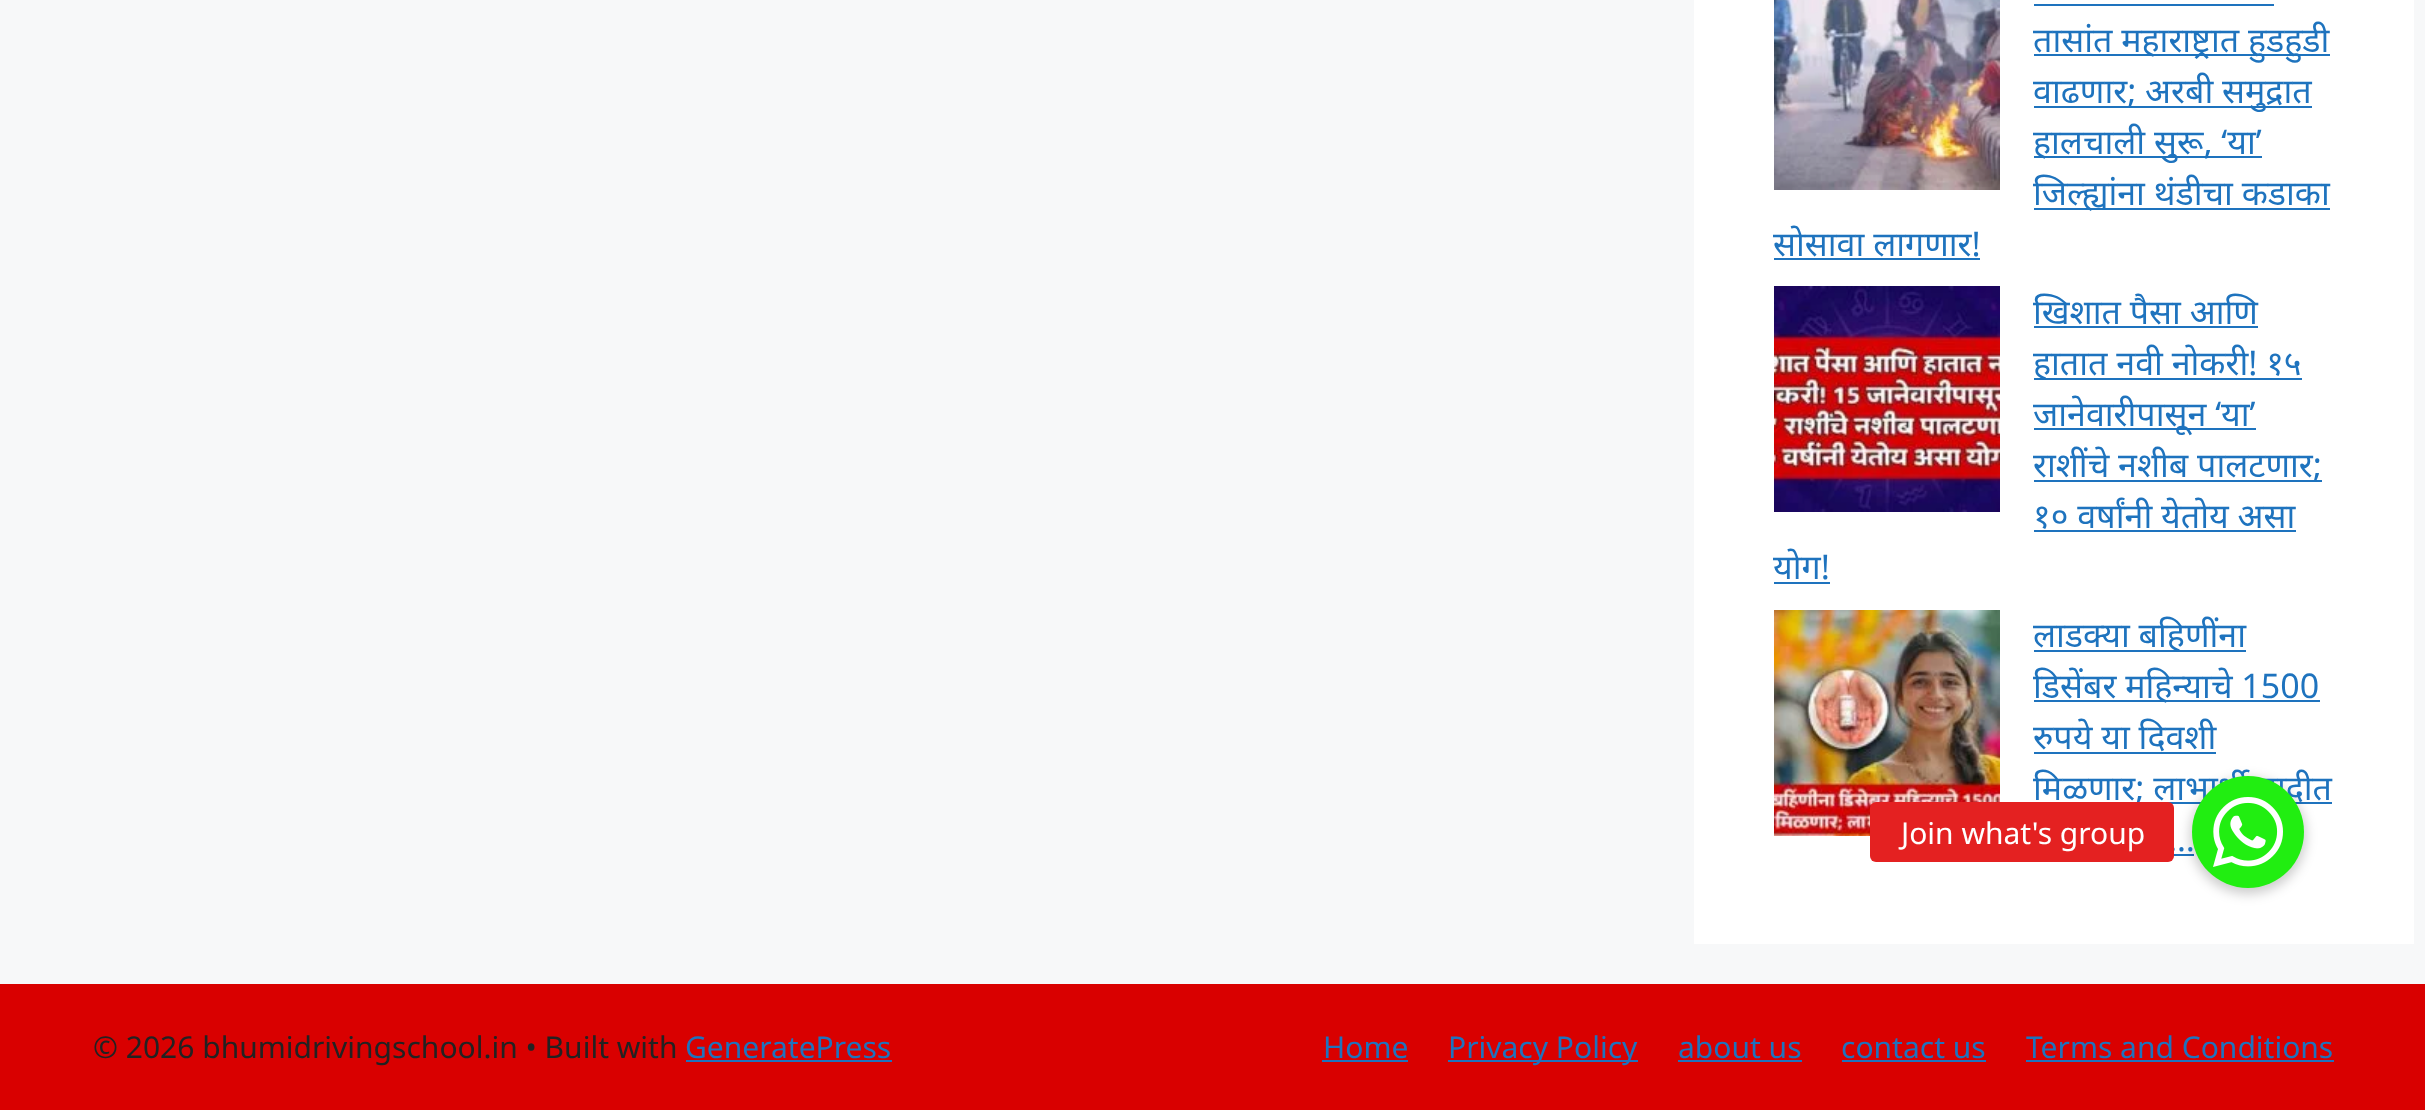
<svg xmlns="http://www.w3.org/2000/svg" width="2425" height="1110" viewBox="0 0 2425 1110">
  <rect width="100%" height="100%" fill="#f7f8f9"/>
  <path d="M1694 0h720v944H1694z" fill="#fff"/>
  <image x="1774" y="0" width="226" height="190" href="img/1.png"/>
  <path d="M2034 4h240v2H2034z" fill="#1e73be"/>
  <path d="M2034 54h296v2H2034z" fill="#1e73be"/>
  <path d="M2034 106h278v2H2034z" fill="#1e73be"/>
  <path d="M2034 156h228v2H2034z" fill="#1e73be"/>
  <path d="M2034 208h296v2H2034z" fill="#1e73be"/>
  <path d="M1774 258h206v2H1774z" fill="#1e73be"/>
  <image x="1774" y="286" width="226" height="226" href="img/2.png"/>
  <path d="M2034 326h224v2H2034z" fill="#1e73be"/>
  <path d="M2034 378h268v2H2034z" fill="#1e73be"/>
  <path d="M2034 428h222v2H2034z" fill="#1e73be"/>
  <path d="M2034 480h288v2H2034z" fill="#1e73be"/>
  <path d="M2034 530h262v2H2034z" fill="#1e73be"/>
  <path d="M1774 582h56v2H1774z" fill="#1e73be"/>
  <image x="1774" y="610" width="226" height="226" href="img/3.png"/>
  <path d="M2034 650h212v2H2034z" fill="#1e73be"/>
  <path d="M2034 700h286v2H2034z" fill="#1e73be"/>
  <path d="M2034 752h182v2H2034z" fill="#1e73be"/>
  <path d="M2168 802h164v2H2168z" fill="#1e73be"/>
  <path d="M2174 854h20v2H2174z" fill="#1e73be"/>
  <rect x="2190" y="778" width="116" height="116" rx="58" fill="#00000033" filter="blur(6px)"/>
  <path d="M0 984h2425v126H0z" fill="#d90000"/>
  <path d="M686 1060h206v2H686z" fill="#1e73be"/>
  <path d="M1322 1060h86v2H1322z" fill="#1e73be"/>
  <path d="M1448 1060h190v2H1448z" fill="#1e73be"/>
  <path d="M1678 1060h124v2H1678z" fill="#1e73be"/>
  <path d="M1842 1060h144v2H1842z" fill="#1e73be"/>
  <path d="M2026 1060h308v2H2026z" fill="#1e73be"/>
  <g font-family="Noto Sans" font-size="34" fill="#1e73be">
    <text x="2033" y="52">तासांत महाराष्ट्रात हुडहुडी</text>
    <text x="2033" y="103">वाढणार; अरबी समुद्रात</text>
    <text x="2033" y="154">हालचाली सुरू, ‘या’</text>
    <text x="2033" y="205">जिल्ह्यांना थंडीचा कडाका</text>
    <text x="1773" y="256">सोसावा लागणार!</text>
    <text x="2033" y="324">खिशात पैसा आणि</text>
    <text x="2033" y="375">हातात नवी नोकरी! १५</text>
    <text x="2033" y="426">जानेवारीपासून ‘या’</text>
    <text x="2033" y="477">राशींचे नशीब पालटणार;</text>
    <text x="2033" y="528">१० वर्षांनी येतोय असा</text>
    <text x="1773" y="579">योग!</text>
    <text x="2033" y="647">लाडक्या बहिणींना</text>
    <text x="2033" y="698">डिसेंबर महिन्याचे 1500</text>
    <text x="2033" y="749">रुपये या दिवशी</text>
    <text x="2033" y="800">मिळणार; लाभार्थी यादीत</text>
    <text x="2168" y="851">…</text>
  </g>
  <circle cx="2248" cy="832" r="56" fill="#21ee11"/>
  <rect x="1870" y="802" width="304" height="60" rx="6" fill="#e42121"/>
  <text x="1901" y="844" font-family="Noto Sans" font-size="30" fill="#fff">Join what's group</text>
  <image x="2213" y="797" width="70" height="70" href="img/4.png"/>
  <text x="93" y="1058" font-family="Noto Sans" font-size="30" fill="#222">© 2026 bhumidrivingschool.in • Built with</text>
  <g font-family="Noto Sans" font-size="30" fill="#1e73be">
    <text x="685" y="1058">GeneratePress</text>
    <text x="1323" y="1058">Home</text>
    <text x="1448" y="1058">Privacy Policy</text>
    <text x="1678" y="1058">about us</text>
    <text x="1841" y="1058">contact us</text>
    <text x="2026" y="1058">Terms and Conditions</text>
  </g>
</svg>
